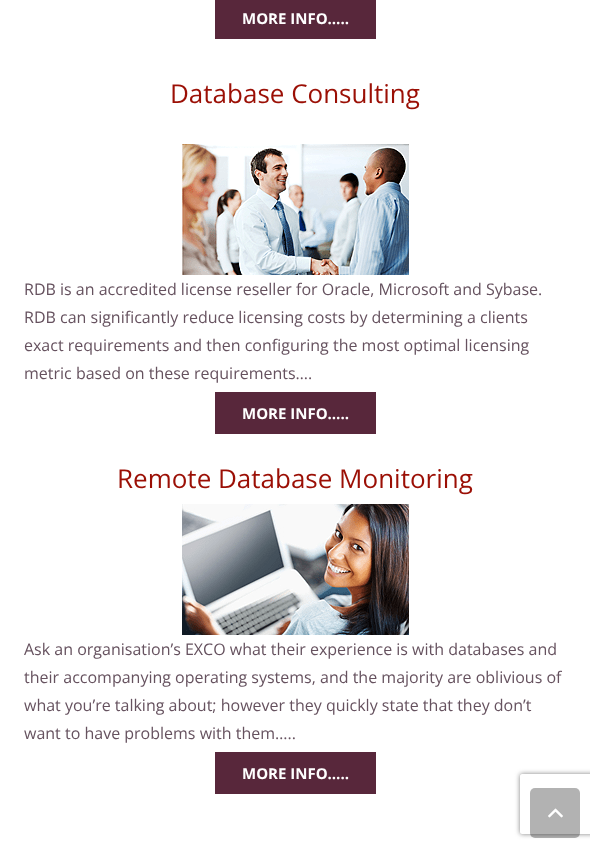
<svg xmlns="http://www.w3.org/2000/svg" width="590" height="848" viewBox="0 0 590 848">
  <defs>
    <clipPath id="clip1"><path d="M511 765H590V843H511ZM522 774H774C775 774 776 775 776 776V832C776 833 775 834 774 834H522C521 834 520 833 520 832V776C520 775 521 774 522 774Z" clip-rule="evenodd"/></clipPath>
  </defs>
  <rect width="100%" height="100%" fill="#fff"/>
  <path d="M215 0h161v39H215z" fill="#58273b"/>
  <image x="182" y="144" width="227" height="131" href="img/1.png"/>
  <path d="M215 392h161v42H215z" fill="#58273b"/>
  <image x="182" y="504" width="227" height="131" href="img/2.png"/>
  <path d="M215 752h161v42H215z" fill="#58273b"/>
  <g clip-path="url(#clip1)">
    <rect x="520" y="774" width="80" height="60" rx="2" fill="#808080" filter="blur(2.5px)"/>
  </g>
  <rect x="530" y="788" width="50" height="50" rx="5" fill="#0000004d"/>
  <image x="548" y="808" width="15" height="10" href="img/3.png"/>
  <text x="242" y="24" font-family="Open Sans" font-size="15" font-weight="bold" fill="#fff">MORE INFO…..</text>
  <text x="170" y="103" font-family="Open Sans" font-size="26" fill="#9b0f05">Database Consulting</text>
  <g font-family="Open Sans" font-size="16" fill="#66525f">
    <text x="24" y="295">RDB is an accredited license reseller for Oracle, Microsoft and Sybase.</text>
    <text x="24" y="323">RDB can significantly reduce licensing costs by determining a clients</text>
    <text x="24" y="351">exact requirements and then configuring the most optimal licensing</text>
    <text x="24" y="379">metric based on these requirements….</text>
  </g>
  <text x="242" y="419" font-family="Open Sans" font-size="15" font-weight="bold" fill="#fff">MORE INFO…..</text>
  <text x="117" y="488" font-family="Open Sans" font-size="26" fill="#9b0f05">Remote Database Monitoring</text>
  <g font-family="Open Sans" font-size="16" fill="#66525f">
    <text x="24" y="655">Ask an organisation’s EXCO what their experience is with databases and</text>
    <text x="24" y="683">their accompanying operating systems, and the majority are oblivious of</text>
    <text x="24" y="711">what you’re talking about; however they quickly state that they don’t</text>
    <text x="24" y="739">want to have problems with them…..</text>
  </g>
  <text x="242" y="779" font-family="Open Sans" font-size="15" font-weight="bold" fill="#fff">MORE INFO…..</text>
</svg>
